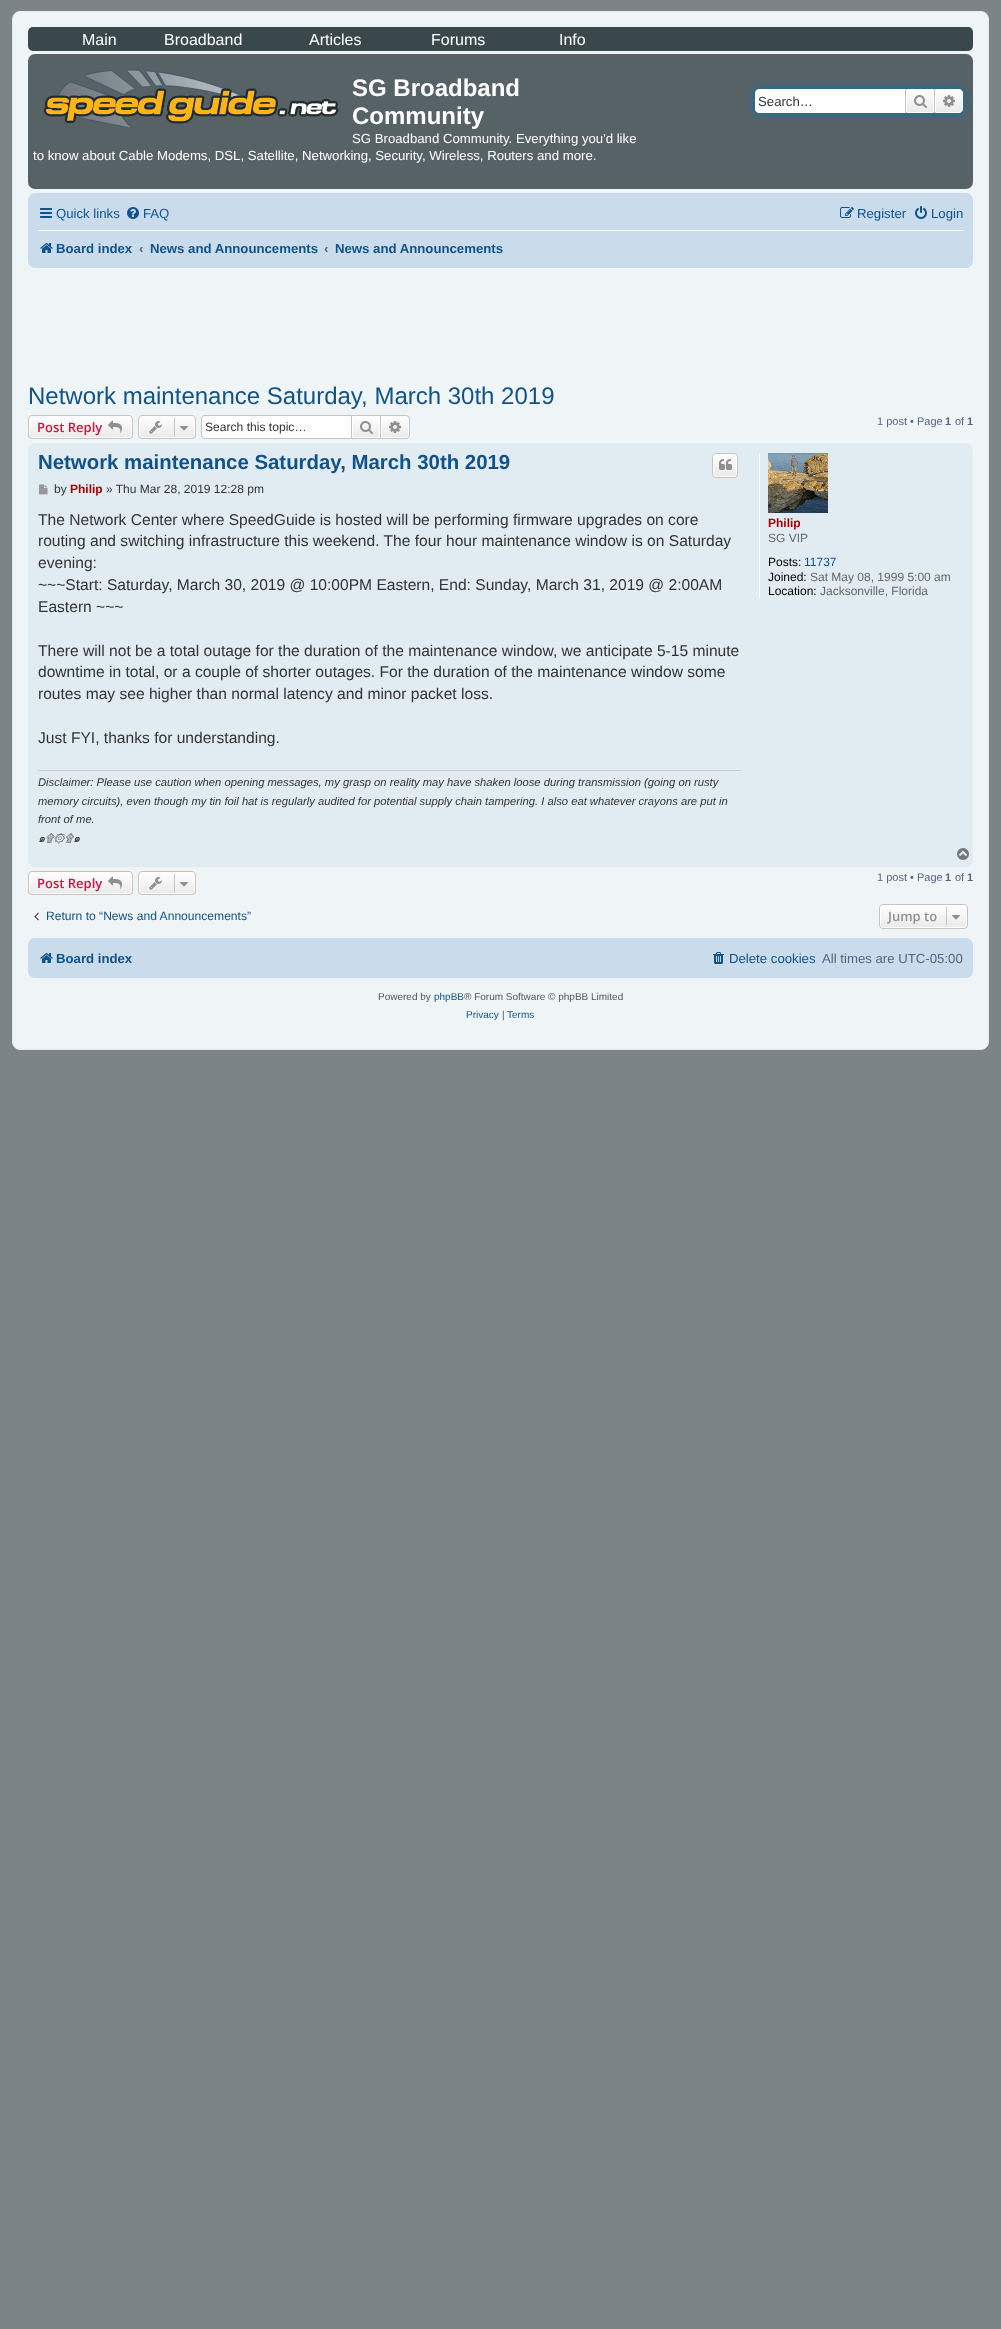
<svg xmlns="http://www.w3.org/2000/svg" width="1001" height="2329" viewBox="0 0 1001 2329">
  <defs>
    <linearGradient id="g1" gradientUnits="userSpaceOnUse" x1="920" y1="89" x2="920" y2="113"><stop offset="0" stop-color="#fff"/><stop offset="1" stop-color="#e9e9e9"/></linearGradient>
    <linearGradient id="g2" gradientUnits="userSpaceOnUse" x1="949" y1="89" x2="949" y2="113"><stop offset="0" stop-color="#fff"/><stop offset="1" stop-color="#e9e9e9"/></linearGradient>
    <clipPath id="clip1"><rect x="28" y="415" width="105" height="24" rx="4"/></clipPath>
    <linearGradient id="g3" gradientUnits="userSpaceOnUse" x1="81" y1="416" x2="81" y2="438"><stop offset="0" stop-color="#fff"/><stop offset="1" stop-color="#e9e9e9"/></linearGradient>
    <clipPath id="clip2"><rect x="138" y="415" width="58" height="24" rx="4"/></clipPath>
    <linearGradient id="g4" gradientUnits="userSpaceOnUse" x1="167" y1="416" x2="167" y2="438"><stop offset="0" stop-color="#fff"/><stop offset="1" stop-color="#e9e9e9"/></linearGradient>
    <linearGradient id="g5" gradientUnits="userSpaceOnUse" x1="366" y1="416" x2="366" y2="438"><stop offset="0" stop-color="#fff"/><stop offset="1" stop-color="#e9e9e9"/></linearGradient>
    <linearGradient id="g6" gradientUnits="userSpaceOnUse" x1="395" y1="416" x2="395" y2="438"><stop offset="0" stop-color="#fff"/><stop offset="1" stop-color="#e9e9e9"/></linearGradient>
    <clipPath id="clip3"><rect x="712" y="453" width="26" height="25" rx="4"/></clipPath>
    <linearGradient id="g7" gradientUnits="userSpaceOnUse" x1="725" y1="454" x2="725" y2="477"><stop offset="0" stop-color="#fff"/><stop offset="1" stop-color="#e9e9e9"/></linearGradient>
    <clipPath id="clip4"><rect x="28" y="871" width="105" height="24" rx="4"/></clipPath>
    <linearGradient id="g8" gradientUnits="userSpaceOnUse" x1="81" y1="872" x2="81" y2="894"><stop offset="0" stop-color="#fff"/><stop offset="1" stop-color="#e9e9e9"/></linearGradient>
    <clipPath id="clip5"><rect x="138" y="871" width="58" height="24" rx="4"/></clipPath>
    <linearGradient id="g9" gradientUnits="userSpaceOnUse" x1="167" y1="872" x2="167" y2="894"><stop offset="0" stop-color="#fff"/><stop offset="1" stop-color="#e9e9e9"/></linearGradient>
    <clipPath id="clip6"><rect x="879" y="904" width="89" height="25" rx="4"/></clipPath>
    <linearGradient id="g10" gradientUnits="userSpaceOnUse" x1="924" y1="905" x2="924" y2="928"><stop offset="0" stop-color="#fff"/><stop offset="1" stop-color="#e9e9e9"/></linearGradient>
  </defs>
  <rect width="100%" height="100%" fill="#7c8488"/>
  <rect x="12.5" y="11.5" width="976" height="1038" rx="7.5" fill="#eff4f6" stroke="#e6e9ed"/>
  <rect x="28" y="27" width="945" height="24" rx="5" fill="#3a484c"/>
  <rect x="28" y="54" width="945" height="135" rx="7" fill="#576267"/>
  <image x="44" y="69" width="295" height="60" href="img/1.png"/>
  <rect x="755" y="89" width="208" height="24" rx="4" fill="#0075b0" filter="blur(5px)"/>
  <path d="M759 89H905V113H759C757 113 755 111 755 109V93C755 91 757 89 759 89Z" fill="#fff"/>
  <path d="M907 90h26v22H907z" fill="url(#g1)"/>
  <path d="M906.5 89.5h27v23H906.5z" fill="none" stroke="#fff"/>
  <path d="M934 89h1v24H934z" fill="#c7c3bf"/>
  <path d="M905 89h1v24H905z" fill="#c7c3bf"/>
  <image x="914" y="95" width="13" height="13" href="img/2.png"/>
  <path d="M935.5 89.5H959C961 89.5 962.5 91 962.5 93V109C962.5 111 961 112.5 959 112.5H935.5Z" fill="url(#g2)" stroke="#fff"/>
  <image x="943" y="95" width="12" height="12" href="img/3.png"/>
  <rect x="28" y="193" width="945" height="75" rx="7" fill="#cadceb"/>
  <image x="40" y="208" width="12" height="10" href="img/4.png"/>
  <image x="127" y="207" width="12" height="12" href="img/5.png"/>
  <image x="840" y="207" width="14" height="11" href="img/6.png"/>
  <image x="915" y="206" width="12" height="13" href="img/7.png"/>
  <path d="M38 230h925v1H38z" fill="#fff"/>
  <image x="40" y="243" width="13" height="10" href="img/8.png"/>
  <g clip-path="url(#clip1)">
    <path d="M28 416h105v22H28z" fill="url(#g3)"/>
  </g>
  <rect x="29.5" y="416.5" width="102" height="21" rx="2.5" fill="none" stroke="#fff"/>
  <rect x="28.5" y="415.5" width="104" height="23" rx="3.5" fill="none" stroke="#c7c3bf"/>
  <image x="108" y="420" width="14" height="13" href="img/9.png"/>
  <g clip-path="url(#clip2)">
    <path d="M138 416h58v22H138z" fill="url(#g4)"/>
  </g>
  <rect x="139.5" y="416.5" width="55" height="21" rx="2.5" fill="none" stroke="#fff"/>
  <rect x="138.5" y="415.5" width="57" height="23" rx="3.5" fill="none" stroke="#c7c3bf"/>
  <image x="149" y="421" width="13" height="13" href="img/10.png"/>
  <path d="M174 418h1v18H174z" fill="#c7c3bf"/>
  <image x="180" y="426" width="8" height="5" href="img/11.png"/>
  <path d="M205 416H351V438H205C203.5 438 202 436.5 202 435V419C202 417.5 203.5 416 205 416Z" fill="#fff"/>
  <path d="M205 415H351V439H205C203 439 201 437 201 435V419C201 417 203 415 205 415ZM205 416H351V438H205C203 438 202 437 202 435V419C202 417 203 416 205 416Z" fill="#c7c3bf" fill-rule="evenodd"/>
  <path d="M353 417h26v20H353z" fill="url(#g5)"/>
  <path d="M352.5 416.5h27v21H352.5z" fill="none" stroke="#fff"/>
  <path d="M351.5 415.5h29v23H351.5z" fill="none" stroke="#c7c3bf"/>
  <image x="360" y="421" width="13" height="13" href="img/12.png"/>
  <path d="M381.5 416.5H406C407.5 416.5 408.5 417.5 408.5 419V435C408.5 436.5 407.5 437.5 406 437.5H381.5Z" fill="url(#g6)" stroke="#fff"/>
  <path d="M381 415H406C408 415 410 417 410 419V435C410 437 408 439 406 439H381ZM381 416H406C407.5 416 409 417.5 409 419V435C409 436.5 407.5 438 406 438H381Z" fill="#c7c3bf" fill-rule="evenodd"/>
  <image x="389" y="421" width="12" height="12" href="img/13.png"/>
  <rect x="28" y="443" width="945" height="424" rx="7" fill="#e1ebf2"/>
  <g clip-path="url(#clip3)">
    <path d="M712 454h26v23H712z" fill="url(#g7)"/>
  </g>
  <rect x="713.5" y="454.5" width="23" height="22" rx="2.5" fill="none" stroke="#fff"/>
  <rect x="712.5" y="453.5" width="25" height="24" rx="3.5" fill="none" stroke="#c7c3bf"/>
  <image x="719" y="459" width="13" height="11" href="img/14.png"/>
  <image x="39" y="484" width="9" height="11" href="img/15.png"/>
  <path d="M38 770h703v1H38z" fill="#ccc"/>
  <path d="M759 453h1v145H759z" fill="#fff"/>
  <image x="768" y="453" width="60" height="60" href="img/16.png"/>
  <image x="957" y="848" width="12" height="12" href="img/17.png"/>
  <g clip-path="url(#clip4)">
    <path d="M28 872h105v22H28z" fill="url(#g8)"/>
  </g>
  <rect x="29.5" y="872.5" width="102" height="21" rx="2.5" fill="none" stroke="#fff"/>
  <rect x="28.5" y="871.5" width="104" height="23" rx="3.5" fill="none" stroke="#c7c3bf"/>
  <image x="108" y="876" width="14" height="13" href="img/9.png"/>
  <g clip-path="url(#clip5)">
    <path d="M138 872h58v22H138z" fill="url(#g9)"/>
  </g>
  <rect x="139.5" y="872.5" width="55" height="21" rx="2.5" fill="none" stroke="#fff"/>
  <rect x="138.5" y="871.5" width="57" height="23" rx="3.5" fill="none" stroke="#c7c3bf"/>
  <image x="149" y="877" width="13" height="13" href="img/10.png"/>
  <path d="M174 874h1v18H174z" fill="#c7c3bf"/>
  <image x="180" y="882" width="8" height="5" href="img/11.png"/>
  <image x="34" y="912" width="5" height="9" href="img/18.png"/>
  <g clip-path="url(#clip6)">
    <path d="M879 905h89v23H879z" fill="url(#g10)"/>
  </g>
  <rect x="880.5" y="905.5" width="86" height="22" rx="2.5" fill="none" stroke="#fff"/>
  <rect x="879.5" y="904.5" width="88" height="24" rx="3.5" fill="none" stroke="#c7c3bf"/>
  <path d="M946 907h1v18H946z" fill="#c7c3bf"/>
  <image x="952" y="915" width="8" height="5" href="img/11.png"/>
  <rect x="28" y="938" width="945" height="40" rx="7" fill="#cadceb"/>
  <image x="40" y="953" width="13" height="10" href="img/8.png"/>
  <image x="713" y="952" width="11" height="12" href="img/19.png"/>
  <g font-family="Liberation Sans" font-size="16" fill="#fff">
    <text x="82" y="45">Main</text>
    <text x="164" y="45">Broadband</text>
    <text x="309" y="45">Articles</text>
    <text x="431" y="45">Forums</text>
    <text x="559" y="45">Info</text>
  </g>
  <g font-family="Liberation Sans" font-size="24" font-weight="bold" fill="#fff">
    <text x="352" y="96">SG Broadband</text>
    <text x="352" y="124">Community</text>
  </g>
  <g font-family="Liberation Sans" font-size="13.2" fill="#fff">
    <text x="352" y="143">SG Broadband Community. Everything you'd like</text>
    <text x="33" y="160">to know about Cable Modems, DSL, Satellite, Networking, Security, Wireless, Routers and more.</text>
  </g>
  <text x="758" y="106" font-family="Liberation Sans" font-size="13.2" fill="#333">Search…</text>
  <g font-family="Liberation Sans" font-size="13.2" fill="#105289">
    <text x="56" y="218">Quick links</text>
    <text x="143" y="218">FAQ</text>
    <text x="857" y="218">Register</text>
    <text x="931" y="218">Login</text>
  </g>
  <text x="56" y="253" font-family="Liberation Sans" font-size="13.2" font-weight="bold" fill="#105289">Board index</text>
  <text x="139" y="253" font-family="Liberation Sans" font-size="13.2" font-weight="bold" fill="#536482">‹</text>
  <text x="150" y="253" font-family="Liberation Sans" font-size="13.2" font-weight="bold" fill="#105289">News and Announcements</text>
  <text x="324" y="253" font-family="Liberation Sans" font-size="13.2" font-weight="bold" fill="#536482">‹</text>
  <text x="335" y="253" font-family="Liberation Sans" font-size="13.2" font-weight="bold" fill="#105289">News and Announcements</text>
  <text x="28" y="404" font-family="Liberation Sans" font-size="24" fill="#105289">Network maintenance Saturday, March 30th 2019</text>
  <text x="37" y="432" font-family="Open Sans" font-size="13" font-weight="600" fill="#d31141">Post Reply</text>
  <text x="205" y="431" font-family="Liberation Sans" font-size="12.1" fill="#333">Search this topic…</text>
  <text x="877" y="425" font-family="Liberation Sans" font-size="11" fill="#536482">1 post • Page</text>
  <text x="945" y="425" font-family="Liberation Sans" font-size="11" font-weight="bold" fill="#536482">1</text>
  <text x="955" y="425" font-family="Liberation Sans" font-size="11" fill="#536482">of</text>
  <text x="967" y="425" font-family="Liberation Sans" font-size="11" font-weight="bold" fill="#536482">1</text>
  <text x="38" y="469" font-family="Liberation Sans" font-size="20.4" font-weight="bold" fill="#105289">Network maintenance Saturday, March 30th 2019</text>
  <text x="54" y="493" font-family="Liberation Sans" font-size="12" fill="#333">by</text>
  <text x="70" y="493" font-family="Liberation Sans" font-size="12" font-weight="bold" fill="#a00">Philip</text>
  <text x="106" y="493" font-family="Liberation Sans" font-size="12" fill="#333">» Thu Mar 28, 2019 12:28 pm</text>
  <g font-family="Liberation Sans" font-size="15.6" fill="#333">
    <text x="38" y="525">The Network Center where SpeedGuide is hosted will be performing firmware upgrades on core</text>
    <text x="38" y="546">routing and switching infrastructure this weekend. The four hour maintenance window is on Saturday</text>
    <text x="38" y="568">evening:</text>
    <text x="38" y="590">~~~Start: Saturday, March 30, 2019 @ 10:00PM Eastern, End: Sunday, March 31, 2019 @ 2:00AM</text>
    <text x="38" y="612">Eastern ~~~</text>
    <text x="38" y="656">There will not be a total outage for the duration of the maintenance window, we anticipate 5-15 minute</text>
    <text x="38" y="677">downtime in total, or a couple of shorter outages. For the duration of the maintenance window some</text>
    <text x="38" y="699">routes may see higher than normal latency and minor packet loss.</text>
    <text x="38" y="743">Just FYI, thanks for understanding.</text>
  </g>
  <g font-family="Liberation Sans" font-size="11.22" font-style="italic" fill="#333">
    <text x="38" y="786">Disclaimer: Please use caution when opening messages, my grasp on reality may have shaken loose during transmission (going on rusty</text>
    <text x="38" y="805">memory circuits), even though my tin foil hat is regularly audited for potential supply chain tampering. I also eat whatever crayons are put in</text>
    <text x="38" y="823">front of me.</text>
  </g>
  <text x="38" y="842" font-family="Loma" font-size="11.22" font-style="italic" fill="#333">๑</text>
  <text x="45" y="842" font-family="FreeSerif" font-size="11.22" font-style="italic" fill="#333">۩۞۩</text>
  <text x="73" y="842" font-family="Loma" font-size="11.22" font-style="italic" fill="#333">๑</text>
  <text x="768" y="527" font-family="Liberation Sans" font-size="12" font-weight="bold" fill="#a00">Philip</text>
  <text x="768" y="542" font-family="Liberation Sans" font-size="12" fill="#666">SG VIP</text>
  <text x="768" y="566" font-family="Liberation Sans" font-size="12" fill="#000">Posts:</text>
  <text x="804" y="566" font-family="Liberation Sans" font-size="12" fill="#105289">11737</text>
  <text x="768" y="581" font-family="Liberation Sans" font-size="12" fill="#000">Joined:</text>
  <text x="810" y="581" font-family="Liberation Sans" font-size="12" fill="#666">Sat May 08, 1999 5:00 am</text>
  <text x="768" y="595" font-family="Liberation Sans" font-size="12" fill="#000">Location:</text>
  <text x="820" y="595" font-family="Liberation Sans" font-size="12" fill="#666">Jacksonville, Florida</text>
  <text x="37" y="888" font-family="Open Sans" font-size="13" font-weight="600" fill="#d31141">Post Reply</text>
  <text x="877" y="881" font-family="Liberation Sans" font-size="11" fill="#536482">1 post • Page</text>
  <text x="945" y="881" font-family="Liberation Sans" font-size="11" font-weight="bold" fill="#536482">1</text>
  <text x="955" y="881" font-family="Liberation Sans" font-size="11" fill="#536482">of</text>
  <text x="967" y="881" font-family="Liberation Sans" font-size="11" font-weight="bold" fill="#536482">1</text>
  <text x="46" y="920" font-family="Liberation Sans" font-size="12.1" fill="#105289">Return to “News and Announcements”</text>
  <text x="888" y="921" font-family="Open Sans" font-size="13" font-weight="600" fill="#8f8f8f">Jump to</text>
  <text x="56" y="963" font-family="Liberation Sans" font-size="13.2" font-weight="bold" fill="#105289">Board index</text>
  <text x="729" y="963" font-family="Liberation Sans" font-size="13.2" fill="#105289">Delete cookies</text>
  <text x="822" y="963" font-family="Liberation Sans" font-size="13.2" fill="#536482">All times are UTC-05:00</text>
  <text x="378" y="1000" font-family="Liberation Sans" font-size="10" fill="#555">Powered by</text>
  <text x="434" y="1000" font-family="Liberation Sans" font-size="10" fill="#105289">phpBB</text>
  <text x="464" y="1000" font-family="Liberation Sans" font-size="10" fill="#555">® Forum Software © phpBB Limited</text>
  <text x="466" y="1018" font-family="Liberation Sans" font-size="10" fill="#105289">Privacy</text>
  <text x="502" y="1018" font-family="Liberation Sans" font-size="10" fill="#555">|</text>
  <text x="507" y="1018" font-family="Liberation Sans" font-size="10" fill="#105289">Terms</text>
</svg>
